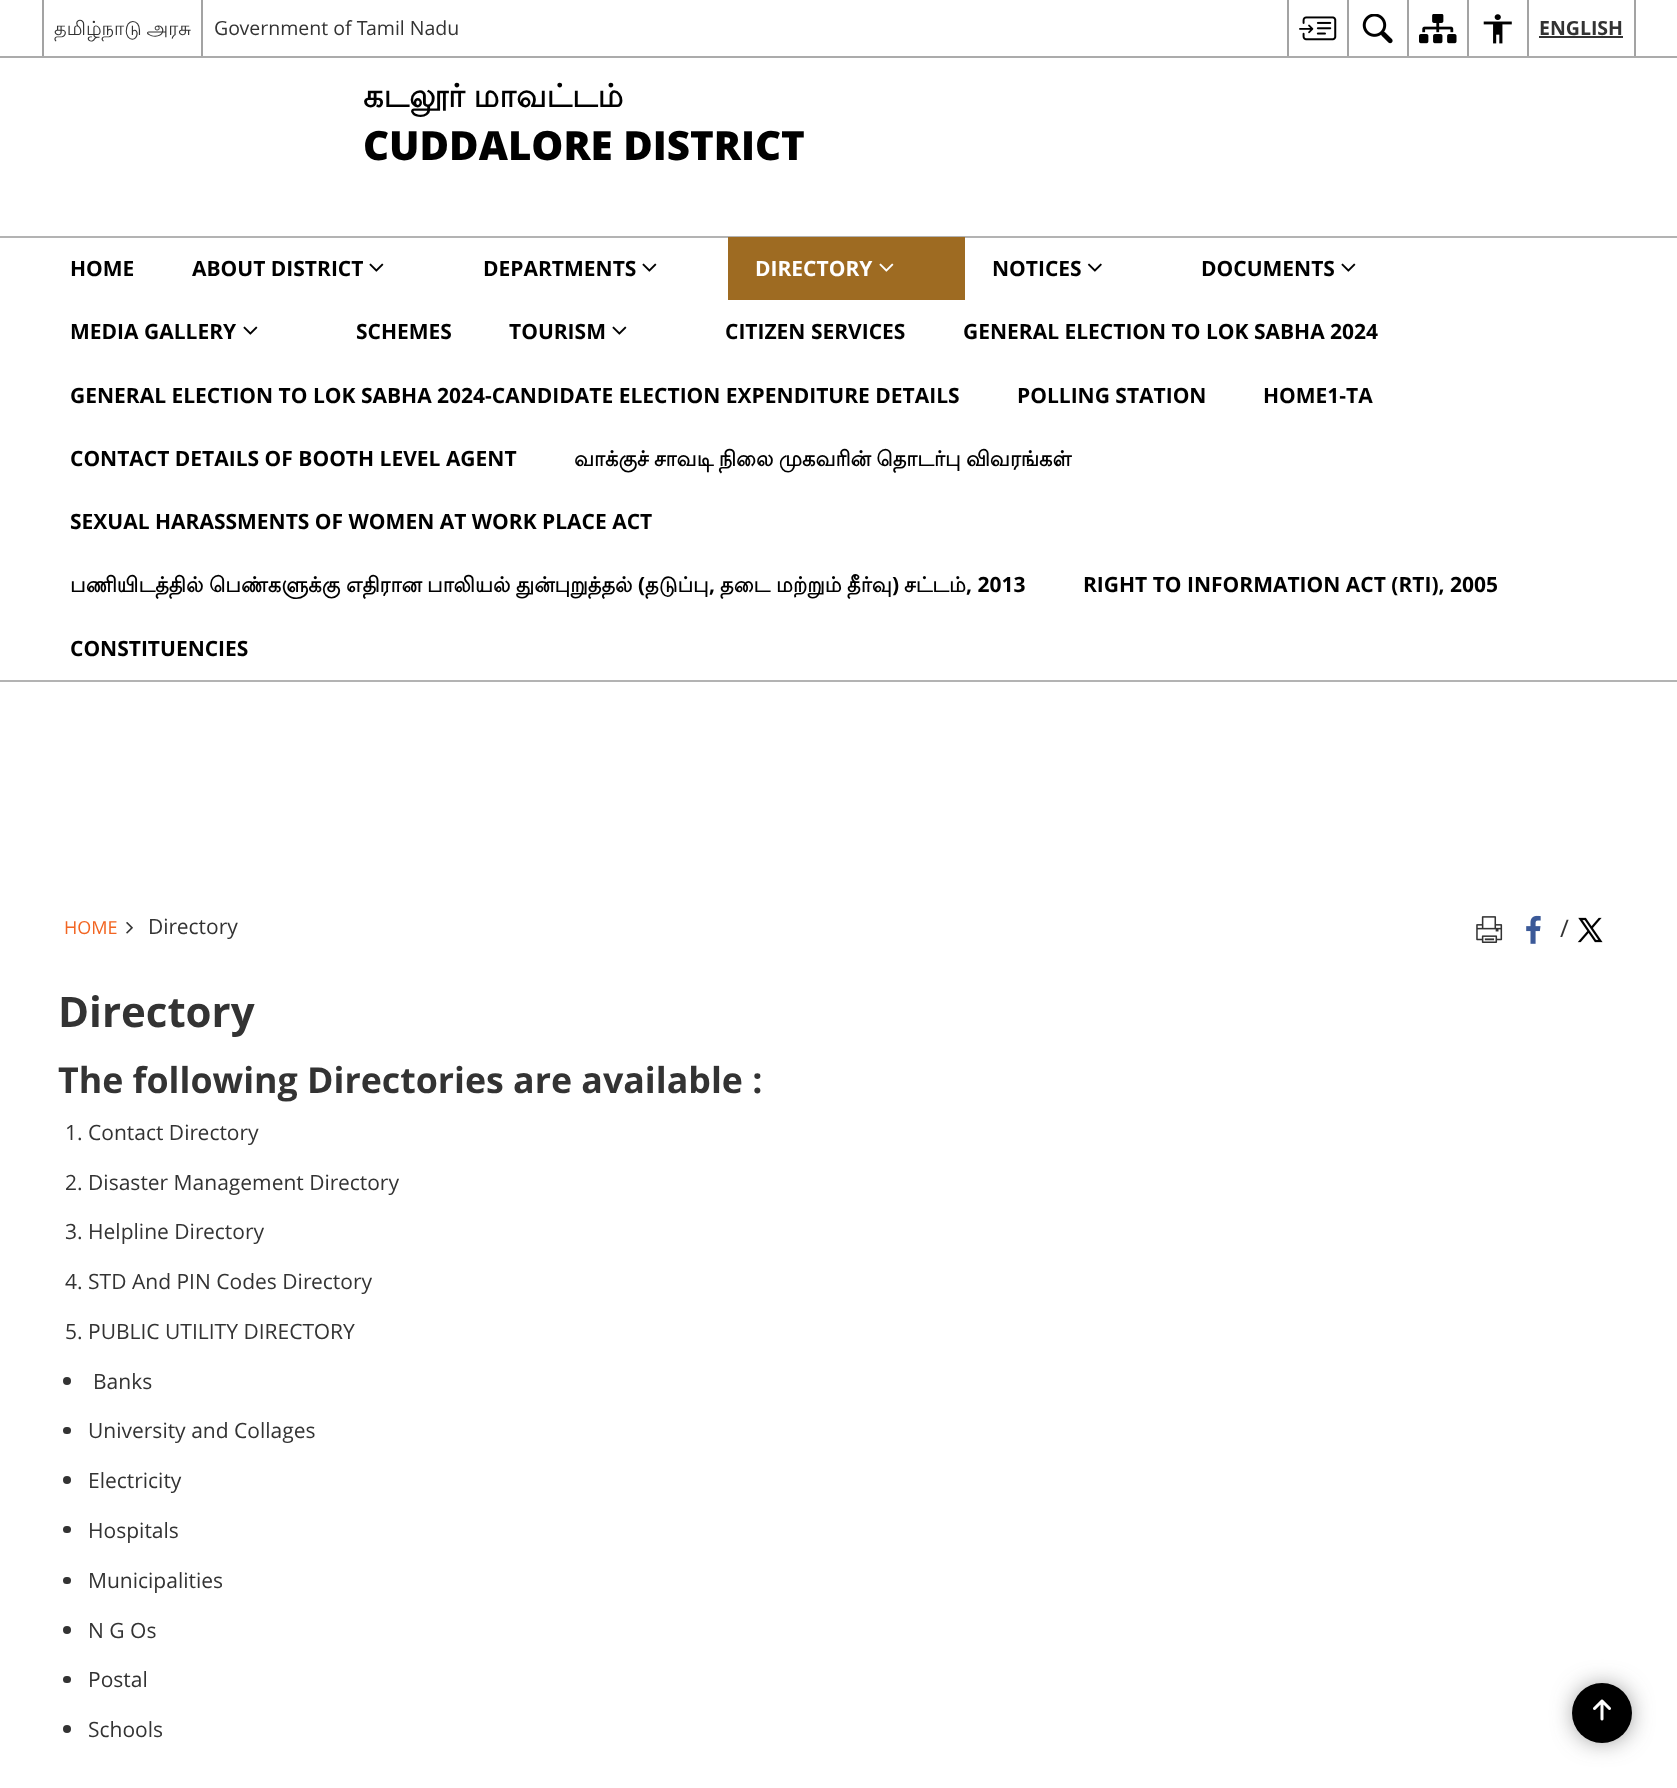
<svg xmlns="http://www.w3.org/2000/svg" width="1677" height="1788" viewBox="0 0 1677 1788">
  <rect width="100%" height="100%" fill="#fff"/>
  <path d="M0 56h1677v2H0z" fill="#ababab"/>
  <path d="M42 0h2v56H42z" fill="#a3a3a3"/>
  <path d="M201 0h2v56H201z" fill="#a3a3a3"/>
  <path d="M1287 0h2v56H1287z" fill="#a3a3a3"/>
  <image x="1299" y="16" width="38" height="25" href="img/1.png"/>
  <path d="M1347 0h2v56H1347z" fill="#a3a3a3"/>
  <image x="1362" y="14" width="31" height="30" href="img/2.png"/>
  <path d="M1407 0h2v56H1407z" fill="#a3a3a3"/>
  <image x="1419" y="14" width="38" height="30" href="img/3.png"/>
  <path d="M1467 0h2v56H1467z" fill="#a3a3a3"/>
  <image x="1483" y="14" width="29" height="30" href="img/4.png"/>
  <path d="M1634 0h2v56H1634z" fill="#a3a3a3"/>
  <path d="M1527 0h2v56H1527z" fill="#a3a3a3"/>
  <path d="M1539 36h84v2H1539z" fill="#333"/>
  <path d="M0 236h1677v2H0z" fill="#b3b3b3"/>
  <path d="M0 680h1677v2H0z" fill="#b3b3b3"/>
  <image x="369" y="263" width="15" height="9" href="img/5.png"/>
  <image x="642" y="263" width="15" height="9" href="img/5.png"/>
  <path d="M728 237h237v63H728z" fill="#9e6b22"/>
  <image x="879" y="263" width="15" height="9" href="img/6.png"/>
  <image x="1087" y="263" width="15" height="9" href="img/7.png"/>
  <image x="1341" y="263" width="15" height="9" href="img/5.png"/>
  <image x="243" y="326" width="15" height="9" href="img/5.png"/>
  <image x="612" y="326" width="15" height="9" href="img/5.png"/>
  <image x="126" y="922" width="7" height="12" href="img/8.png"/>
  <image x="1476" y="916" width="27" height="27" href="img/9.png"/>
  <image x="1526" y="915" width="15" height="29" href="img/10.png"/>
  <image x="1577" y="917" width="26" height="26" href="img/11.png"/>
  <circle cx="67" cy="1381" r="4" fill="#333"/>
  <rect x="63" y="1427" width="8" height="7" rx="3.5" fill="#333"/>
  <circle cx="67" cy="1480" r="4" fill="#333"/>
  <rect x="63" y="1526" width="8" height="7" rx="3.5" fill="#333"/>
  <rect x="63" y="1577" width="8" height="7" rx="3.5" fill="#333"/>
  <circle cx="67" cy="1630" r="4" fill="#333"/>
  <rect x="63" y="1676" width="8" height="7" rx="3.5" fill="#333"/>
  <circle cx="67" cy="1729" r="4" fill="#333"/>
  <rect x="1580" y="1691" width="45" height="45" rx="22.5" fill="#3c3c3c" filter="blur(14px)"/>
  <circle cx="1602" cy="1713" r="30" fill="#000"/>
  <image x="1593" y="1699" width="18" height="22" href="img/12.png"/>
  <text x="54" y="35" word-spacing="-1" font-family="Lohit Tamil" font-size="19.5" fill="#333">தமிழ்நாடு அரசு</text>
  <text x="214" y="35" font-family="Open Sans" font-size="19.5" fill="#333">Government of Tamil Nadu</text>
  <text x="1539" y="35" font-family="Open Sans" font-size="19.5" font-weight="bold" fill="#333">ENGLISH</text>
  <text x="363" y="107" word-spacing="-1" font-family="Lohit Tamil" font-size="32" font-weight="bold" fill="#000">கடலூர் மாவட்டம்</text>
  <text x="363" y="160" font-family="Open Sans" font-size="40.25" font-weight="800" fill="#000">CUDDALORE DISTRICT</text>
  <g font-family="Open Sans" font-size="21" font-weight="bold" fill="#000">
    <text x="70" y="276">HOME</text>
    <text x="192" y="276">ABOUT DISTRICT</text>
    <text x="483" y="276">DEPARTMENTS</text>
  </g>
  <text x="755" y="276" font-family="Open Sans" font-size="21" font-weight="bold" fill="#fff">DIRECTORY</text>
  <g font-family="Open Sans" font-size="21" font-weight="bold" fill="#000">
    <text x="992" y="276">NOTICES</text>
    <text x="1201" y="276">DOCUMENTS</text>
    <text x="70" y="339">MEDIA GALLERY</text>
    <text x="356" y="339">SCHEMES</text>
    <text x="509" y="339">TOURISM</text>
    <text x="725" y="339">CITIZEN SERVICES</text>
    <text x="963" y="339">GENERAL ELECTION TO LOK SABHA 2024</text>
    <text x="70" y="403">GENERAL ELECTION TO LOK SABHA 2024-CANDIDATE ELECTION EXPENDITURE DETAILS</text>
    <text x="1017" y="403">POLLING STATION</text>
    <text x="1263" y="403">HOME1-TA</text>
    <text x="70" y="466">CONTACT DETAILS OF BOOTH LEVEL AGENT</text>
  </g>
  <text x="574" y="466" word-spacing="-1" font-family="Lohit Tamil" font-size="21" font-weight="bold" fill="#000">வாக்குச் சாவடி நிலை முகவரின் தொடர்பு விவரங்கள்</text>
  <text x="70" y="529" font-family="Open Sans" font-size="21" font-weight="bold" fill="#000">SEXUAL HARASSMENTS OF WOMEN AT WORK PLACE ACT</text>
  <g font-family="Lohit Tamil" font-size="21" font-weight="bold" fill="#000">
    <text x="70" y="592">பணியிடத்தில்</text>
    <text x="209" y="592">பெண்களுக்கு</text>
    <text x="346" y="592">எதிரான</text>
    <text x="427" y="592">பாலியல்</text>
    <text x="516" y="592">துன்புறுத்தல்</text>
  </g>
  <text x="638" y="592" font-family="Open Sans" font-size="21" font-weight="bold" fill="#000">(</text>
  <text x="645" y="592" font-family="Lohit Tamil" font-size="21" font-weight="bold" fill="#000">தடுப்பு</text>
  <text x="709" y="592" font-family="Open Sans" font-size="21" font-weight="bold" fill="#000">,</text>
  <g font-family="Lohit Tamil" font-size="21" font-weight="bold" fill="#000">
    <text x="720" y="592">தடை</text>
    <text x="776" y="592">மற்றும்</text>
    <text x="847" y="592">தீர்வு</text>
  </g>
  <text x="892" y="592" font-family="Open Sans" font-size="21" font-weight="bold" fill="#000">)</text>
  <text x="904" y="592" font-family="Lohit Tamil" font-size="21" font-weight="bold" fill="#000">சட்டம்</text>
  <g font-family="Open Sans" font-size="21" font-weight="bold" fill="#000">
    <text x="966" y="592">, 2013</text>
    <text x="1083" y="592">RIGHT TO INFORMATION ACT (RTI), 2005</text>
    <text x="70" y="656">CONSTITUENCIES</text>
  </g>
  <text x="64" y="934" font-family="Open Sans" font-size="18" fill="#f26522">HOME</text>
  <text x="148" y="934" font-family="Open Sans" font-size="21" fill="#333">Directory</text>
  <text x="1560" y="937" font-family="Open Sans" font-size="24" fill="#333">/</text>
  <text x="58" y="1027" font-family="Open Sans" font-size="42" font-weight="bold" fill="#333">Directory</text>
  <text x="58" y="1093" font-family="Open Sans" font-size="35.75" font-weight="bold" fill="#333">The following Directories are available :</text>
  <g font-family="Open Sans" font-size="21" fill="#333">
    <text x="65" y="1140">1. Contact Directory</text>
    <text x="65" y="1190">2. Disaster Management Directory</text>
    <text x="65" y="1239">3. Helpline Directory</text>
    <text x="65" y="1289">4. STD And PIN Codes Directory</text>
    <text x="65" y="1339">5. PUBLIC UTILITY DIRECTORY</text>
    <text x="93" y="1389">Banks</text>
    <text x="88" y="1438">University and Collages</text>
    <text x="88" y="1488">Electricity</text>
    <text x="88" y="1538">Hospitals</text>
    <text x="88" y="1588">Municipalities</text>
    <text x="88" y="1638">N G Os</text>
    <text x="88" y="1687">Postal</text>
    <text x="88" y="1737">Schools</text>
  </g>
</svg>
